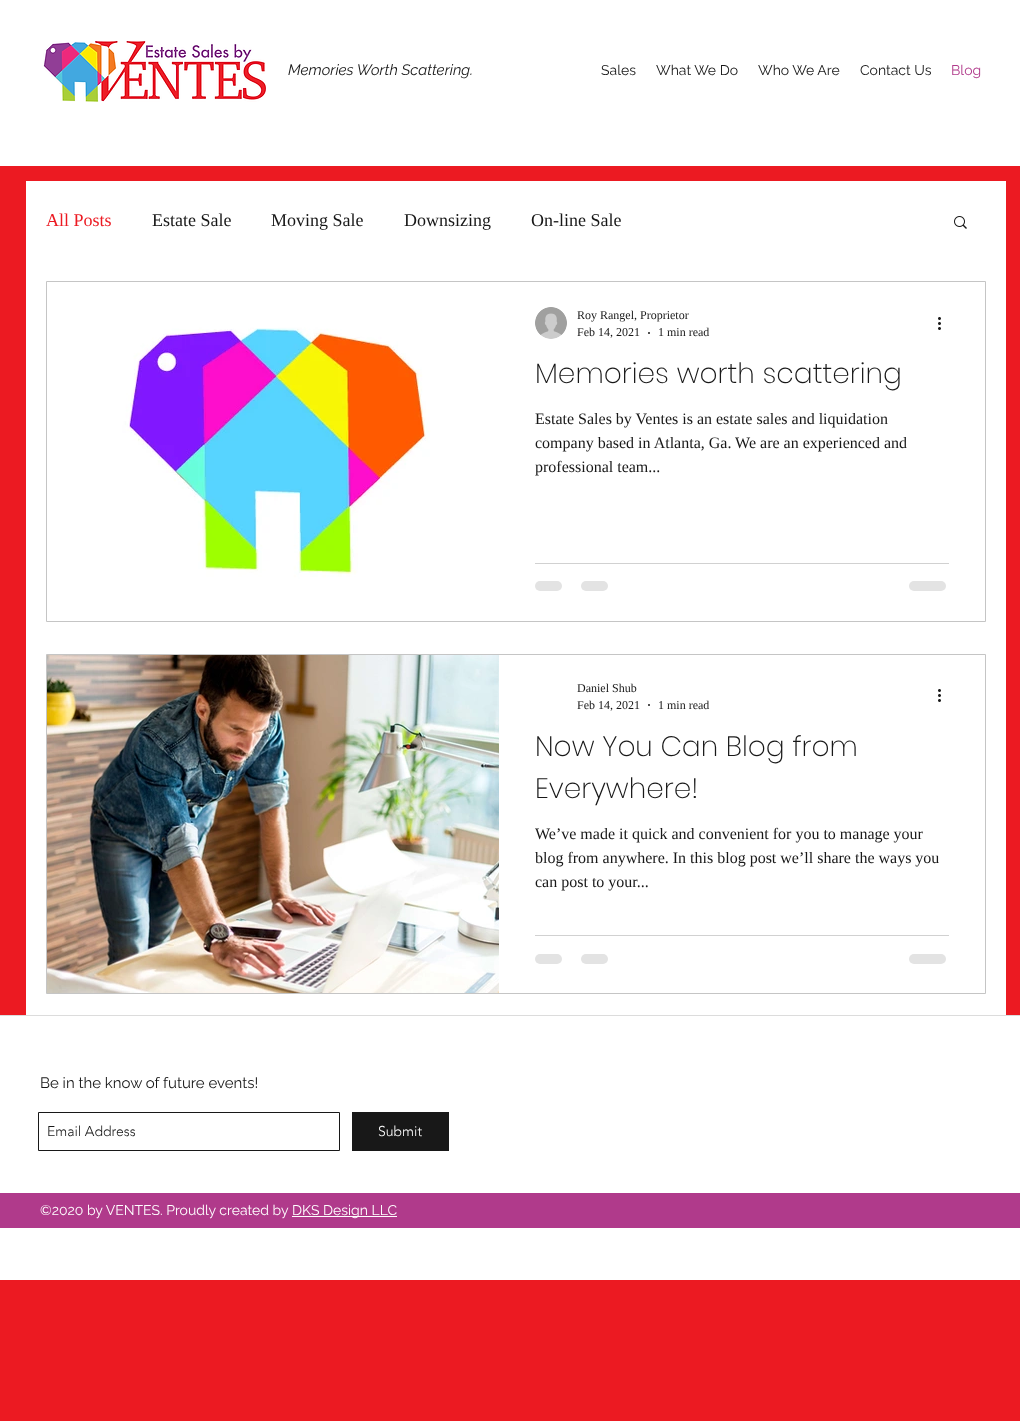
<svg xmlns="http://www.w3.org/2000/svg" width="1020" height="1421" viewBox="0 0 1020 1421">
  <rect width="100%" height="100%" fill="#ec1a22"/>
  <path d="M0 0h1020v166H0z" fill="#fff"/>
  <image x="43" y="41" width="223" height="61" href="img/1.png"/>
  <path d="M26 181h980v834H26z" fill="#fff"/>
  <image x="954" y="216" width="13" height="13" href="img/2.png"/>
  <path d="M46.5 281.5h939v340H46.5z" fill="none" stroke="#c5c5c5"/>
  <image x="71" y="282" width="429" height="339" href="img/3.png"/>
  <image x="535" y="307" width="32" height="32" href="img/4.png"/>
  <circle cx="649" cy="333" r="1" fill="#181818"/>
  <image x="938" y="317" width="3" height="13" href="img/5.png"/>
  <path d="M535 563h414v1H535z" fill="#d1d1d1"/>
  <rect x="535" y="581" width="27" height="10" rx="5" fill="#e3e3e3"/>
  <rect x="581" y="581" width="27" height="10" rx="5" fill="#e3e3e3"/>
  <rect x="909" y="581" width="37" height="10" rx="5" fill="#e3e3e3"/>
  <path d="M46.5 654.5h939v339H46.5z" fill="none" stroke="#c5c5c5"/>
  <image x="47" y="655" width="452" height="338" href="img/6.png"/>
  <circle cx="649" cy="705" r="1" fill="#181818"/>
  <image x="938" y="689" width="3" height="13" href="img/5.png"/>
  <path d="M535 935h414v1H535z" fill="#d1d1d1"/>
  <rect x="535" y="954" width="27" height="10" rx="5" fill="#e3e3e3"/>
  <rect x="581" y="954" width="27" height="10" rx="5" fill="#e3e3e3"/>
  <rect x="909" y="954" width="37" height="10" rx="5" fill="#e3e3e3"/>
  <path d="M0 1016h1020v264H0z" fill="#fff"/>
  <path d="M0 1015h1020v1H0z" fill="#dcdcdc"/>
  <path d="M38.5 1112.5h301v38H38.5z" fill="none" stroke="#181818"/>
  <path d="M352 1112h97v39H352z" fill="#181818"/>
  <path d="M0 1193h1020v35H0z" fill="#b03a8b"/>
  <path d="M292 1216h105v1H292z" fill="#fff"/>
  <text x="288" y="75" font-family="Raleway" font-size="15" font-style="italic" fill="#181818">Memories Worth Scattering.</text>
  <g font-family="Raleway" font-size="14" fill="#181818">
    <text x="601" y="75">Sales</text>
    <text x="656" y="75">What We Do</text>
    <text x="758" y="75">Who We Are</text>
    <text x="860" y="75">Contact Us</text>
  </g>
  <text x="951" y="75" font-family="Raleway" font-size="14" fill="#b03a8b">Blog</text>
  <text x="46" y="226" font-family="Liberation Serif" font-size="18" fill="#ec1a22">All Posts</text>
  <g font-family="Liberation Serif" font-size="18" fill="#181818">
    <text x="152" y="226">Estate Sale</text>
    <text x="271" y="226">Moving Sale</text>
    <text x="404" y="226">Downsizing</text>
    <text x="531" y="226">On-line Sale</text>
  </g>
  <g font-family="Liberation Serif" font-size="12" fill="#181818">
    <text x="577" y="319">Roy Rangel, Proprietor</text>
    <text x="577" y="336">Feb 14, 2021</text>
    <text x="658" y="336">1 min read</text>
  </g>
  <text x="535" y="383" font-family="Poppins" font-size="28" font-weight="200" fill="#181818">Memories worth scattering</text>
  <g font-family="Liberation Serif" font-size="16" fill="#181818">
    <text x="535" y="424">Estate Sales by Ventes is an estate sales and liquidation</text>
    <text x="535" y="448">company based in Atlanta, Ga. We are an experienced and</text>
    <text x="535" y="472">professional team...</text>
  </g>
  <g font-family="Liberation Serif" font-size="12" fill="#181818">
    <text x="577" y="692">Daniel Shub</text>
    <text x="577" y="709">Feb 14, 2021</text>
    <text x="658" y="709">1 min read</text>
  </g>
  <g font-family="Poppins" font-size="28" font-weight="200" fill="#181818">
    <text x="535" y="756">Now You Can Blog from</text>
    <text x="535" y="798">Everywhere!</text>
  </g>
  <g font-family="Liberation Serif" font-size="16" fill="#181818">
    <text x="535" y="839">We’ve made it quick and convenient for you to manage your</text>
    <text x="535" y="863">blog from anywhere. In this blog post we’ll share the ways you</text>
    <text x="535" y="887">can post to your...</text>
  </g>
  <text x="40" y="1088" font-family="Raleway" font-size="15" fill="#181818">Be in the know of future events!</text>
  <text x="47" y="1136" font-family="'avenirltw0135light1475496'" font-size="14" font-weight="300" fill="#181818">Email Address</text>
  <text x="378" y="1136" font-family="'avenirltw0135light1475496'" font-size="14" font-weight="300" fill="#fff">Submit</text>
  <g font-family="Raleway" font-size="14" fill="#fff">
    <text x="40" y="1215">©2020 by VENTES. Proudly created by</text>
    <text x="292" y="1215">DKS Design LLC</text>
  </g>
</svg>
